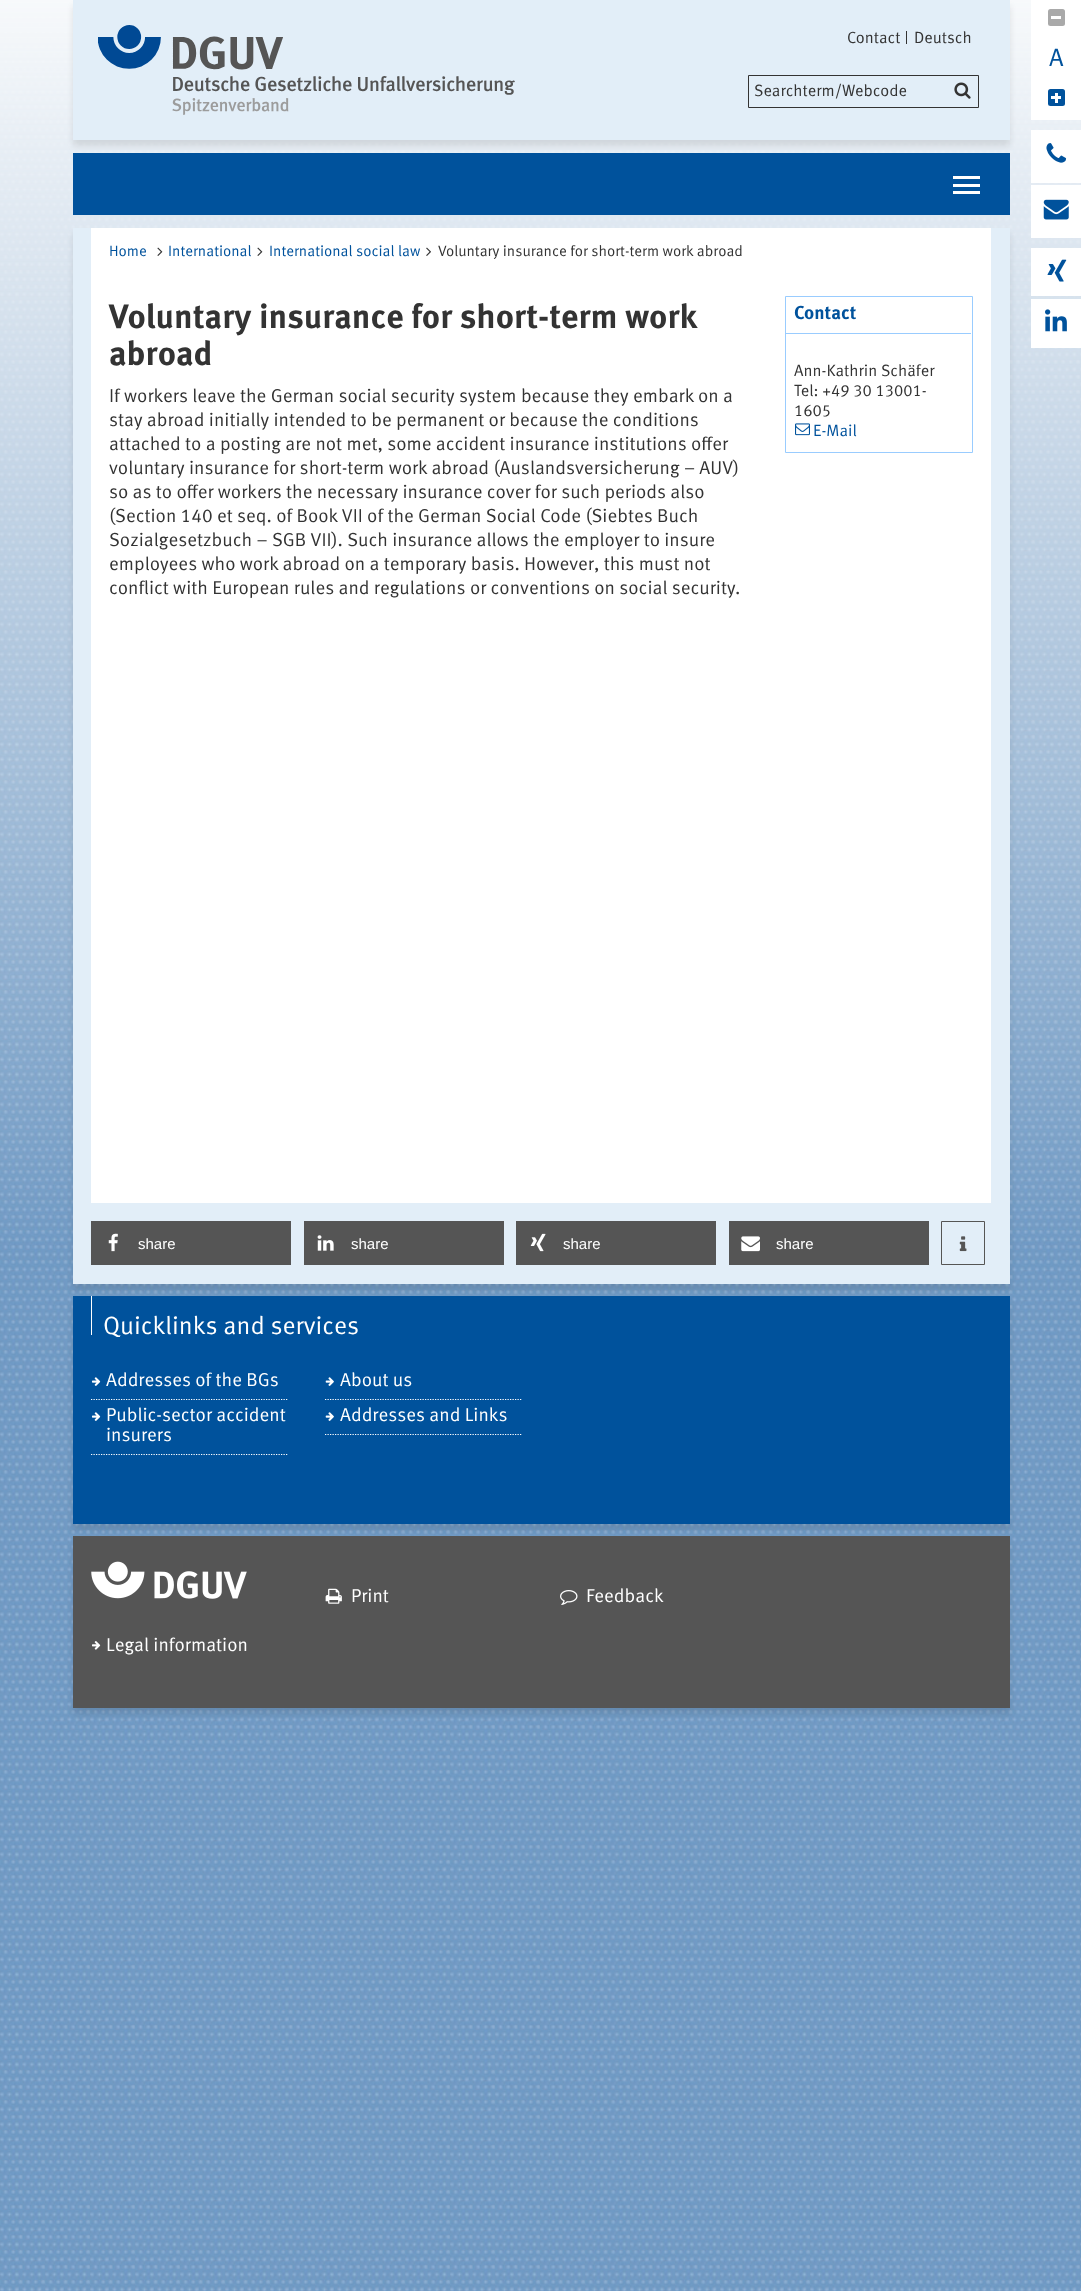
<svg xmlns="http://www.w3.org/2000/svg" width="1081" height="2291" viewBox="0 0 1081 2291">
  <rect width="100%" height="100%" fill="#fff"/>
  <image x="0" y="0" width="1081" height="2291" href="img/1.png"/>
  <path d="M73 6h937v140H73z" fill="#0000001a" filter="blur(3px)"/>
  <path d="M73 0h937v140H73z" fill="#e2eef8"/>
  <image x="98" y="25" width="417" height="90" href="img/2.png"/>
  <path d="M906 31h1v13H906z" fill="#333"/>
  <path d="M1031 0h50v120H1031z" fill="#fff"/>
  <rect x="1048" y="9" width="17" height="17" rx="2.5" fill="#a9a9a9"/>
  <path d="M1051 16h10v3H1051z" fill="#fff"/>
  <rect x="1048" y="89" width="17" height="17" rx="2.5" fill="#00529c"/>
  <path d="M1051 96h10v3H1051z" fill="#fff"/>
  <path d="M1055 93h3v10H1055z" fill="#fff"/>
  <path d="M1031 130h50v53H1031z" fill="#fff"/>
  <image x="1046" y="143" width="21" height="20" href="img/3.png"/>
  <path d="M1031 185h50v53H1031z" fill="#fff"/>
  <image x="1043" y="199" width="26" height="21" href="img/4.png"/>
  <path d="M1031 248h50v48H1031z" fill="#fff"/>
  <image x="1047" y="259" width="20" height="23" href="img/5.png"/>
  <path d="M1031 299h50v49H1031z" fill="#fff"/>
  <image x="1045" y="309" width="22" height="23" href="img/6.png"/>
  <path d="M748.5 75.5h230v32H748.5z" fill="none" stroke="#333"/>
  <image x="954" y="82" width="17" height="17" href="img/7.png"/>
  <path d="M73 153h937v62H73z" fill="#00529c"/>
  <path d="M953 184h27v3H953z" fill="#fff"/>
  <path d="M953 176h27v3H953z" fill="#fff"/>
  <path d="M953 191h27v3H953z" fill="#fff"/>
  <path d="M73 234h937v1056H73z" fill="#0000001a" filter="blur(3px)"/>
  <path d="M73 228h937v1056H73z" fill="#e2eef8"/>
  <path d="M91 228h900v975H91z" fill="#fff"/>
  <image x="157" y="247" width="6" height="9" href="img/8.png"/>
  <image x="257" y="247" width="6" height="9" href="img/8.png"/>
  <image x="426" y="247" width="5" height="9" href="img/9.png"/>
  <path d="M785.5 296.5h187v156H785.5z" fill="none" stroke="#9cf"/>
  <path d="M786 333h185v1H786z" fill="#9cf"/>
  <image x="795" y="423" width="15" height="13" href="img/10.png"/>
  <path d="M91 1221h200v44H91z" fill="#555"/>
  <image x="108" y="1233" width="10" height="19" href="img/11.png"/>
  <path d="M304 1221h200v44H304z" fill="#555"/>
  <image x="317" y="1235" width="17" height="16" href="img/12.png"/>
  <path d="M516 1221h200v44H516z" fill="#555"/>
  <image x="530" y="1233" width="16" height="19" href="img/13.png"/>
  <path d="M729 1221h200v44H729z" fill="#555"/>
  <image x="741" y="1236" width="19" height="16" href="img/14.png"/>
  <path d="M941.5 1221.5h43v43H941.5z" fill="none" stroke="#555"/>
  <image x="959" y="1236" width="8" height="16" href="img/15.png"/>
  <path d="M73 1303h937v227H73z" fill="#0000001a" filter="blur(3px)"/>
  <path d="M73 1296h937v228H73z" fill="#00529c"/>
  <path d="M91 1296h1v39H91z" fill="#fff"/>
  <path d="M91 1399.5H287.5" fill="none" stroke="#fff" stroke-width="1.2" stroke-dasharray="1.25 1.25"/>
  <image x="91" y="1377" width="10" height="9" href="img/16.png"/>
  <path d="M91 1454.5H287.5" fill="none" stroke="#fff" stroke-width="1.2" stroke-dasharray="1.25 1.25"/>
  <image x="91" y="1412" width="10" height="9" href="img/16.png"/>
  <path d="M325 1399.5H522.5" fill="none" stroke="#fff" stroke-width="1.2" stroke-dasharray="1.25 1.25"/>
  <image x="325" y="1377" width="9" height="9" href="img/17.png"/>
  <path d="M325 1434.5H522.5" fill="none" stroke="#fff" stroke-width="1.2" stroke-dasharray="1.25 1.25"/>
  <image x="325" y="1412" width="9" height="9" href="img/17.png"/>
  <path d="M73 1543h937v171H73z" fill="#0000001a" filter="blur(3px)"/>
  <path d="M73 1536h937v172H73z" fill="#555"/>
  <image x="91" y="1561" width="156" height="38" href="img/18.png"/>
  <image x="325" y="1588" width="17" height="16" href="img/19.png"/>
  <image x="560" y="1590" width="18" height="15" href="img/20.png"/>
  <image x="92" y="1641" width="9" height="9" href="img/21.png"/>
  <g font-family="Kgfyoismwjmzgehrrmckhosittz" font-size="16.25" fill="#333">
    <text x="847" y="43">Contact</text>
    <text x="914" y="43">Deutsch</text>
  </g>
  <text x="1049" y="66" font-family="Kgfyoismwjmzgehrrmckhosittz" font-size="25" fill="#00529c">A</text>
  <text x="754" y="96" font-family="Kgfyoismwjmzgehrrmckhosittz" font-size="16.25" fill="#333">Searchterm/Webcode</text>
  <g font-family="Kgfyoismwjmzgehrrmckhosittz" font-size="15" fill="#00529c">
    <text x="109" y="256">Home</text>
    <text x="168" y="256">International</text>
    <text x="269" y="256">International social law</text>
  </g>
  <text x="438" y="256" font-family="Kgfyoismwjmzgehrrmckhosittz" font-size="15" fill="#333">Voluntary insurance for short-term work abroad</text>
  <g font-family="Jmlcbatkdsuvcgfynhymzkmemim" font-size="33.75" font-weight="bold" fill="#333">
    <text x="109" y="328">Voluntary insurance for short-term work</text>
    <text x="109" y="365">abroad</text>
  </g>
  <g font-family="Kgfyoismwjmzgehrrmckhosittz" font-size="18.75" fill="#333">
    <text x="109" y="402">If workers leave the German social security system because they embark on a</text>
    <text x="109" y="426">stay abroad initially intended to be permanent or because the conditions</text>
    <text x="109" y="450">attached to a posting are not met, some accident insurance institutions offer</text>
    <text x="109" y="474">voluntary insurance for short-term work abroad (Auslandsversicherung – AUV)</text>
    <text x="109" y="498">so as to offer workers the necessary insurance cover for such periods also</text>
    <text x="109" y="522">(Section 140 et seq. of Book VII of the German Social Code (Siebtes Buch</text>
    <text x="109" y="546">Sozialgesetzbuch – SGB VII). Such insurance allows the employer to insure</text>
    <text x="109" y="570">employees who work abroad on a temporary basis. However, this must not</text>
    <text x="109" y="594">conflict with European rules and regulations or conventions on social security.</text>
  </g>
  <text x="794" y="319" font-family="Jmlcbatkdsuvcgfynhymzkmemim" font-size="18.75" font-weight="bold" fill="#00529c">Contact</text>
  <g font-family="Kgfyoismwjmzgehrrmckhosittz" font-size="16.25" fill="#333">
    <text x="794" y="376">Ann-Kathrin Schäfer</text>
    <text x="794" y="396">Tel: +49 30 13001-</text>
    <text x="794" y="416">1605</text>
  </g>
  <text x="813" y="436" font-family="Kgfyoismwjmzgehrrmckhosittz" font-size="16.25" fill="#00529c">E-Mail</text>
  <g font-family="Liberation Sans" font-size="15" fill="#fff">
    <text x="138" y="1249">share</text>
    <text x="351" y="1249">share</text>
    <text x="563" y="1249">share</text>
    <text x="776" y="1249">share</text>
  </g>
  <text x="103" y="1334" font-family="Kgfyoismwjmzgehrrmckhosittz" font-size="25" fill="#fff">Quicklinks and services</text>
  <g font-family="Kgfyoismwjmzgehrrmckhosittz" font-size="18.75" fill="#fff">
    <text x="106" y="1386">Addresses of the BGs</text>
    <text x="106" y="1421">Public-sector accident</text>
    <text x="106" y="1441">insurers</text>
    <text x="340" y="1386">About us</text>
    <text x="340" y="1421">Addresses and Links</text>
    <text x="351" y="1602">Print</text>
    <text x="586" y="1602">Feedback</text>
    <text x="106" y="1651">Legal information</text>
  </g>
</svg>
